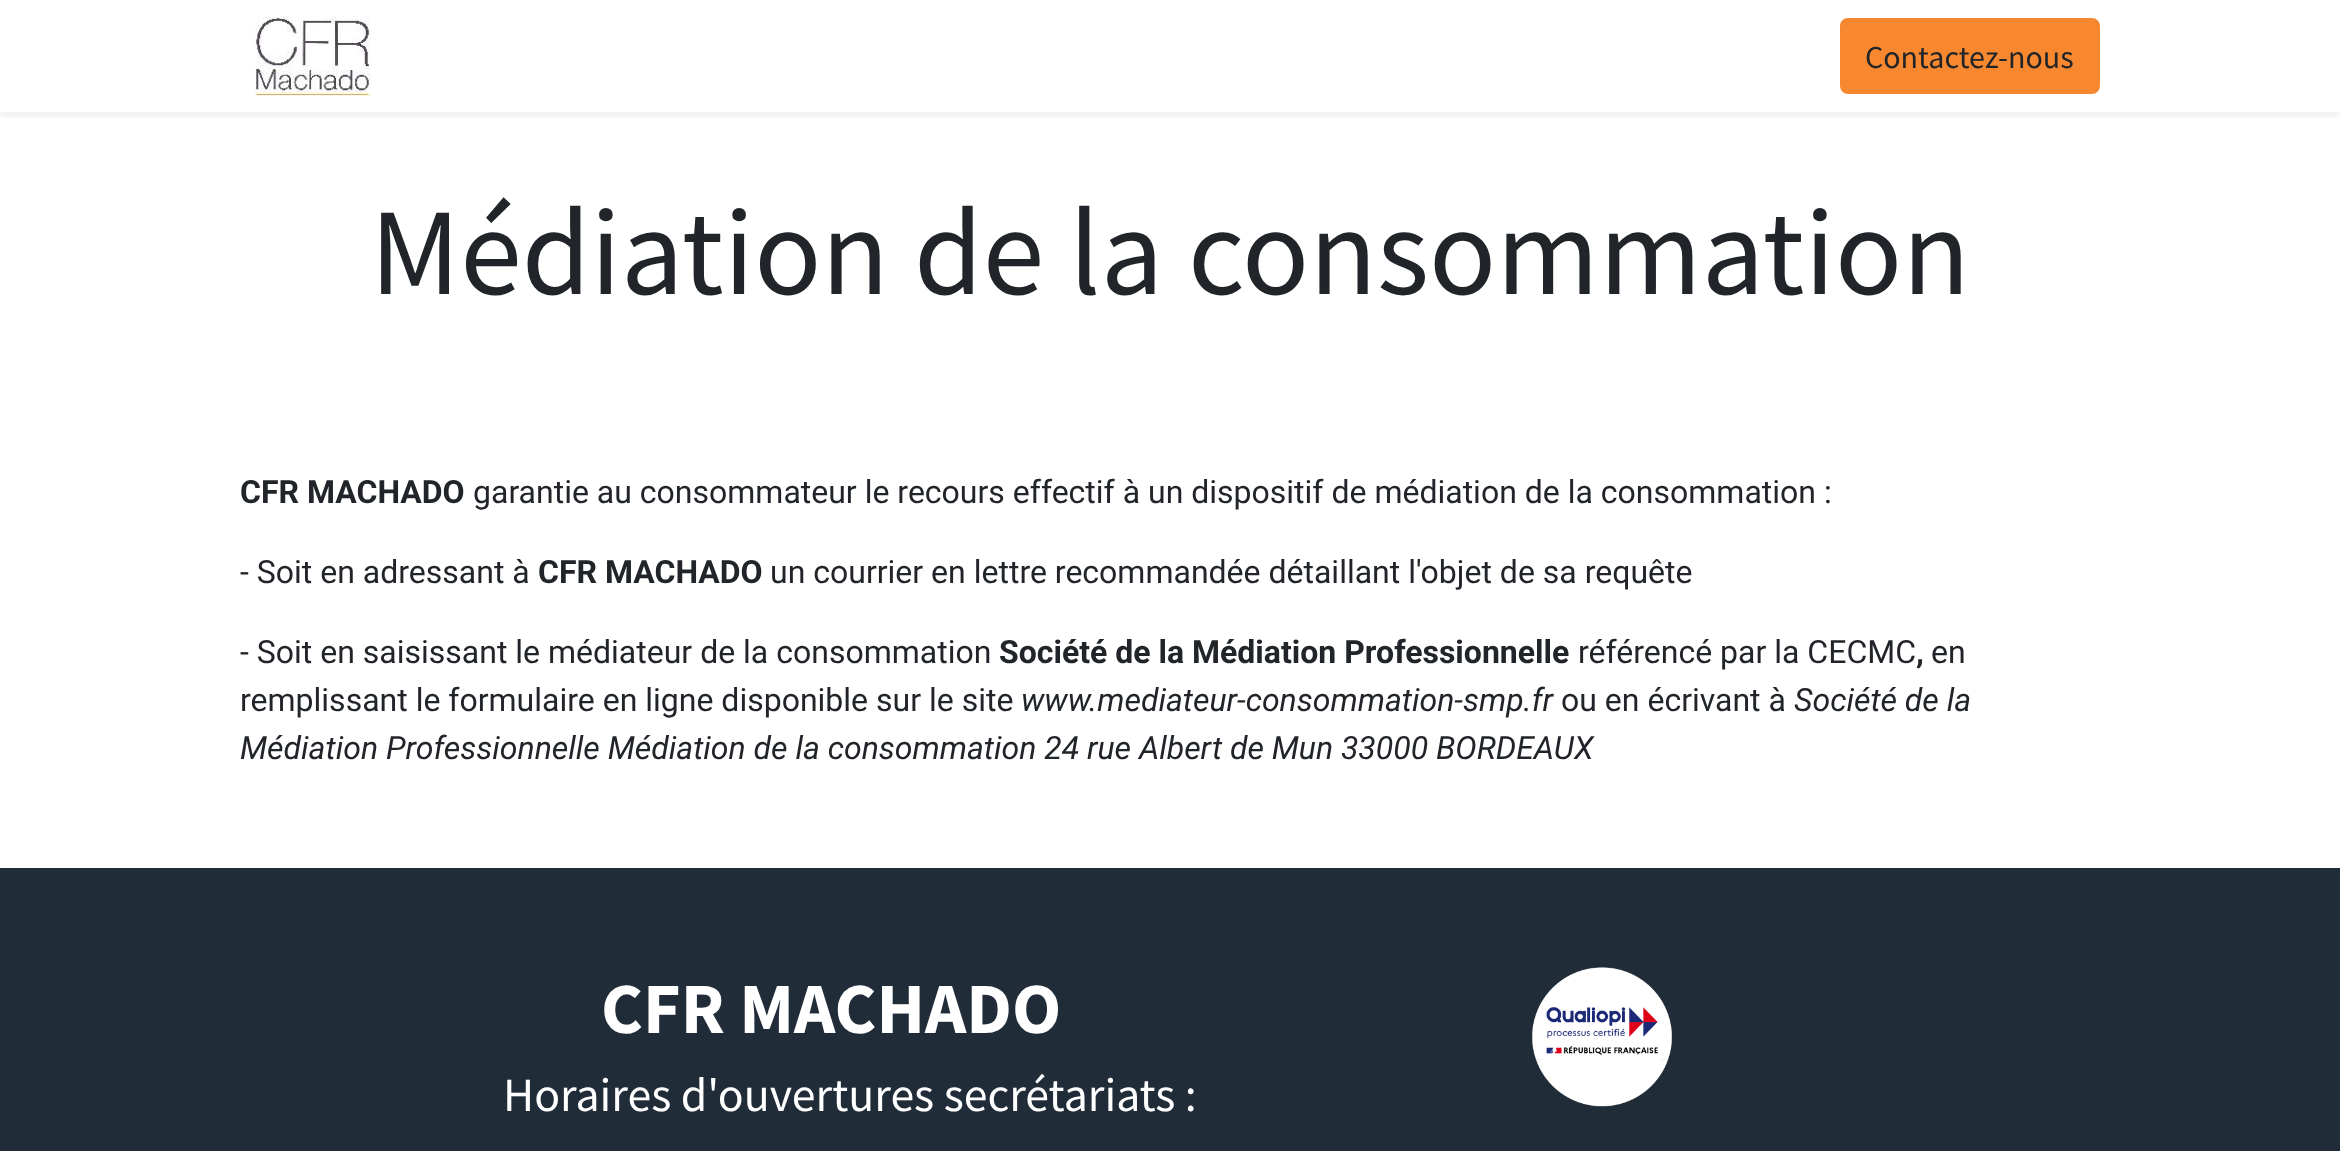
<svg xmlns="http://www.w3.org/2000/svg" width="2340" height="1151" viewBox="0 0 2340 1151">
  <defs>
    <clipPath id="clip1"><path d="M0 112h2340v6H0z"/></clipPath>
  </defs>
  <rect width="100%" height="100%" fill="#fff"/>
  <g clip-path="url(#clip1)">
    <path d="M0 4h2340v112H0z" fill="#00000012" filter="blur(4px)"/>
  </g>
  <image x="254" y="16" width="118" height="80" href="img/1.png"/>
  <rect x="1841" y="19" width="258" height="74" rx="7" fill="#f8882f" stroke="#f8882f" stroke-width="2"/>
  <path d="M0 868h2340v283H0z" fill="#212c39"/>
  <image x="1532" y="967" width="140" height="140" href="img/2.png"/>
  <text x="1865" y="68" font-family="Source Sans Pro" font-size="32" fill="#212529">Contactez-nous</text>
  <text x="370" y="294" font-family="Source Sans Pro" font-size="124" fill="#212529">Médiation de la consommation</text>
  <text x="240" y="503" font-family="Roboto" font-size="32" font-weight="bold" fill="#212529">CFR MACHADO</text>
  <g font-family="Roboto" font-size="32" fill="#212529">
    <text x="473" y="503">garantie au consommateur le recours effectif à un dispositif de médiation de la consommation :</text>
    <text x="240" y="583">- Soit en adressant à</text>
  </g>
  <text x="538" y="583" font-family="Roboto" font-size="32" font-weight="bold" fill="#212529">CFR MACHADO</text>
  <g font-family="Roboto" font-size="32" fill="#212529">
    <text x="770" y="583">un courrier en lettre recommandée détaillant l'objet de sa requête</text>
    <text x="240" y="663">- Soit en saisissant le médiateur de la consommation</text>
  </g>
  <text x="999" y="663" font-family="Roboto" font-size="32" font-weight="bold" fill="#212529">Société de la Médiation Professionnelle</text>
  <text x="1578" y="663" font-family="Roboto" font-size="32" fill="#212529">référencé par la CECMC</text>
  <text x="1916" y="663" font-family="Roboto" font-size="32" font-weight="bold" fill="#212529">,</text>
  <g font-family="Roboto" font-size="32" fill="#212529">
    <text x="1931" y="663">en</text>
    <text x="240" y="711">remplissant le formulaire en ligne disponible sur le site</text>
  </g>
  <text x="1021" y="711" font-family="Roboto" font-size="32" font-style="italic" fill="#212529">www.mediateur-consommation-smp.fr</text>
  <text x="1561" y="711" font-family="Roboto" font-size="32" fill="#212529">ou en écrivant à</text>
  <g font-family="Roboto" font-size="32" font-style="italic" fill="#212529">
    <text x="1794" y="711">Société de la</text>
    <text x="240" y="759">Médiation Professionnelle Médiation de la consommation 24 rue Albert de Mun 33000 BORDEAUX</text>
  </g>
  <text x="601" y="1033" font-family="Source Sans Pro" font-size="72" font-weight="bold" fill="#fff">CFR MACHADO</text>
  <text x="503" y="1111" font-family="Source Sans Pro" font-size="47.8" fill="#fff">Horaires d'ouvertures secrétariats :</text>
</svg>
